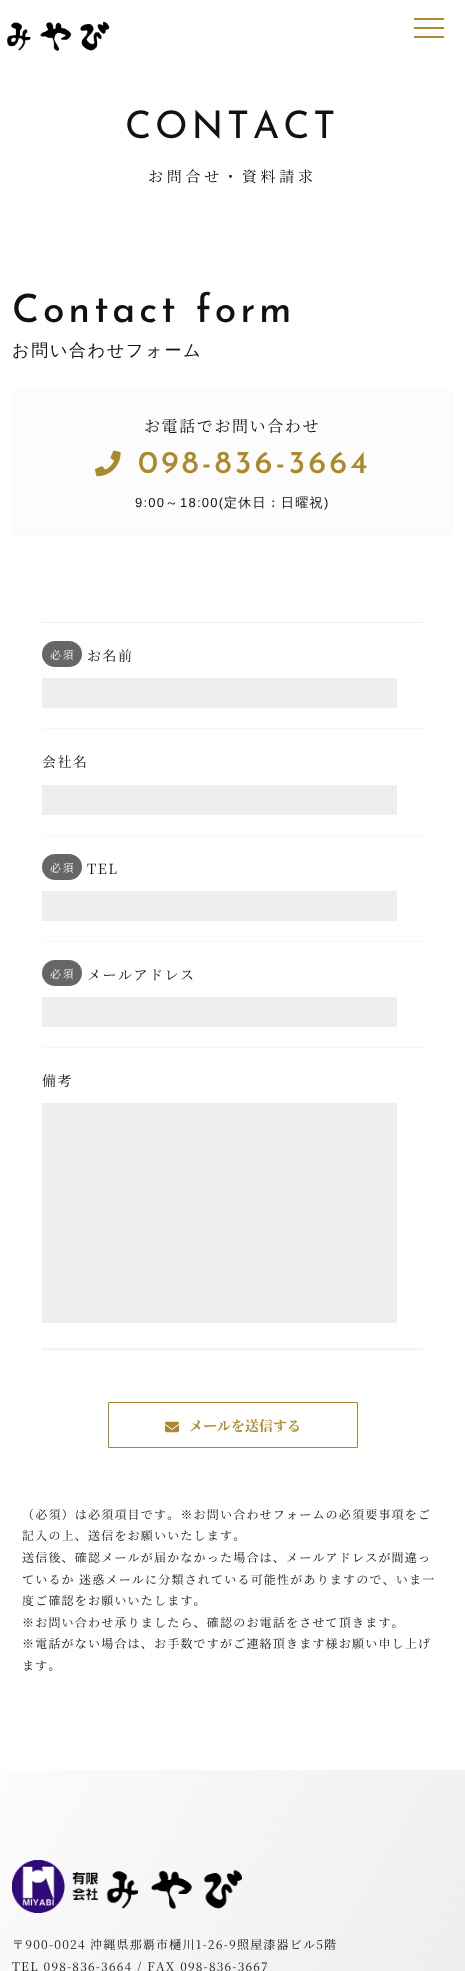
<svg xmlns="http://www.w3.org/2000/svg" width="465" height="1971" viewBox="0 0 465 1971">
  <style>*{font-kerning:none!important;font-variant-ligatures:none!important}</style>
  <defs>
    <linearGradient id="g1" gradientUnits="userSpaceOnUse" x1="-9" y1="1786" x2="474" y2="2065"><stop offset="0" stop-color="#fdfbfb"/><stop offset="1" stop-color="#ebedee"/></linearGradient>
  </defs>
  <rect width="100%" height="100%" fill="#fff"/>
  <image x="7" y="21" width="103" height="30" href="img/1.png"/>
  <path d="M414 18h30v2H414z" fill="#aa8a2c"/>
  <path d="M414 27h30v2H414z" fill="#aa8a2c"/>
  <path d="M414 36h30v2H414z" fill="#aa8a2c"/>
  <rect x="13.5" y="390.5" width="438" height="145" rx="6.5" fill="#fcfcfc" stroke="#fbfaf8" stroke-width="3"/>
  <image x="95" y="450" width="26" height="27" href="img/2.png"/>
  <path d="M42 622h381v1H42z" fill="#eee"/>
  <path d="M42 1349h381v1H42z" fill="#eee"/>
  <rect x="42" y="641" width="40" height="26" rx="13" fill="#666"/>
  <path d="M42 728.5H423" fill="none" stroke="#eee" stroke-dasharray="1 1"/>
  <path d="M42 678h355v30H42z" fill="#eee"/>
  <path d="M42 835.5H423" fill="none" stroke="#eee" stroke-dasharray="1 1"/>
  <path d="M42 785h355v30H42z" fill="#eee"/>
  <rect x="42" y="854" width="40" height="26" rx="13" fill="#666"/>
  <path d="M42 941.5H423" fill="none" stroke="#eee" stroke-dasharray="1 1"/>
  <path d="M42 891h355v30H42z" fill="#eee"/>
  <rect x="42" y="960" width="40" height="26" rx="13" fill="#666"/>
  <path d="M42 1047.5H423" fill="none" stroke="#eee" stroke-dasharray="1 1"/>
  <path d="M42 997h355v30H42z" fill="#eee"/>
  <path d="M42 1348.5H423" fill="none" stroke="#eee" stroke-dasharray="1 1"/>
  <path d="M42 1103h355v220H42z" fill="#eee"/>
  <path d="M108.5 1402.5h249v45H108.5z" fill="none" stroke="#aa8a2c"/>
  <image x="165" y="1421" width="14" height="12" href="img/3.png"/>
  <path d="M0 1770h465v201H0z" fill="url(#g1)"/>
  <image x="12" y="1860" width="230" height="53" href="img/4.png"/>
  <text x="125" y="138" font-family="Josefin Sans" font-size="38" letter-spacing="3.75" fill="#111">CONTACT</text>
  <text x="148" y="182" font-family="Noto Serif JP" font-size="15" letter-spacing="3.75" fill="#111">お問合せ・資料請求</text>
  <text x="12" y="322" font-family="Josefin Sans" font-size="39" font-weight="500" letter-spacing="3.9" fill="#111">Contact form</text>
  <text x="12" y="356" font-family="WenQuanYi Zen Hei" font-size="17" font-weight="500" letter-spacing="1.75" fill="#111">お問い合わせフォーム</text>
  <text x="144" y="432" font-family="Noto Serif JP" font-size="16" letter-spacing="1.6" fill="#111">お電話でお問い合わせ</text>
  <text x="138" y="473" font-family="Josefin Sans" font-size="32" font-weight="500" letter-spacing="3.25" fill="#aa8a2c">098-836-3664</text>
  <text x="135" y="507" font-family="Liberation Sans" font-size="13" letter-spacing="1.25" fill="#111">9:00</text>
  <text x="165" y="507" font-family="WenQuanYi Zen Hei" font-size="13" font-weight="500" letter-spacing="1.25" fill="#111">～</text>
  <text x="180" y="507" font-family="Liberation Sans" font-size="13" letter-spacing="1.25" fill="#111">18:00(</text>
  <text x="224" y="507" font-family="WenQuanYi Zen Hei" font-size="13" font-weight="500" letter-spacing="1.25" fill="#111">定休日：日曜祝</text>
  <text x="324" y="507" font-family="Liberation Sans" font-size="13" letter-spacing="1.25" fill="#111">)</text>
  <text x="50" y="659" font-family="Noto Serif JP" font-size="11" letter-spacing="1.5" fill="#fff">必須</text>
  <g font-family="Noto Serif JP" font-size="14" letter-spacing="1.5" fill="#111">
    <text x="87" y="661">お名前</text>
    <text x="42" y="767">会社名</text>
  </g>
  <text x="50" y="872" font-family="Noto Serif JP" font-size="11" letter-spacing="1.5" fill="#fff">必須</text>
  <text x="87" y="874" font-family="Noto Serif JP" font-size="14" letter-spacing="1.5" fill="#111">TEL</text>
  <text x="50" y="978" font-family="Noto Serif JP" font-size="11" letter-spacing="1.5" fill="#fff">必須</text>
  <g font-family="Noto Serif JP" font-size="14" letter-spacing="1.5" fill="#111">
    <text x="87" y="980">メールアドレス</text>
    <text x="42" y="1086">備考</text>
  </g>
  <text x="189" y="1431" font-family="Noto Serif JP" font-size="14" font-weight="bold" fill="#aa8a2c">メールを送信する</text>
  <g font-family="Noto Serif JP" font-size="12" letter-spacing="1.2" fill="#111">
    <text x="22" y="1519">（必須）は必須項目です。※お問い合わせフォームの必須要事項をご</text>
    <text x="22" y="1540">記入の上、送信をお願いいたします。</text>
    <text x="22" y="1562">送信後、確認メールが届かなかった場合は、メールアドレスが間違っ</text>
    <text x="22" y="1584">ているか 迷惑メールに分類されている可能性がありますので、いま一</text>
    <text x="22" y="1605">度ご確認をお願いいたします。</text>
    <text x="22" y="1627">※お問い合わせ承りましたら、確認のお電話をさせて頂きます。</text>
    <text x="22" y="1648">※電話がない場合は、お手数ですがご連絡頂きます様お願い申し上げ</text>
    <text x="22" y="1670">ます。</text>
    <text x="12" y="1949">〒900-0024 沖縄県那覇市樋川1-26-9照屋漆器ビル5階</text>
    <text x="12" y="1971" word-spacing="0.5">TEL 098-836-3664 / FAX 098-836-3667</text>
  </g>
</svg>
